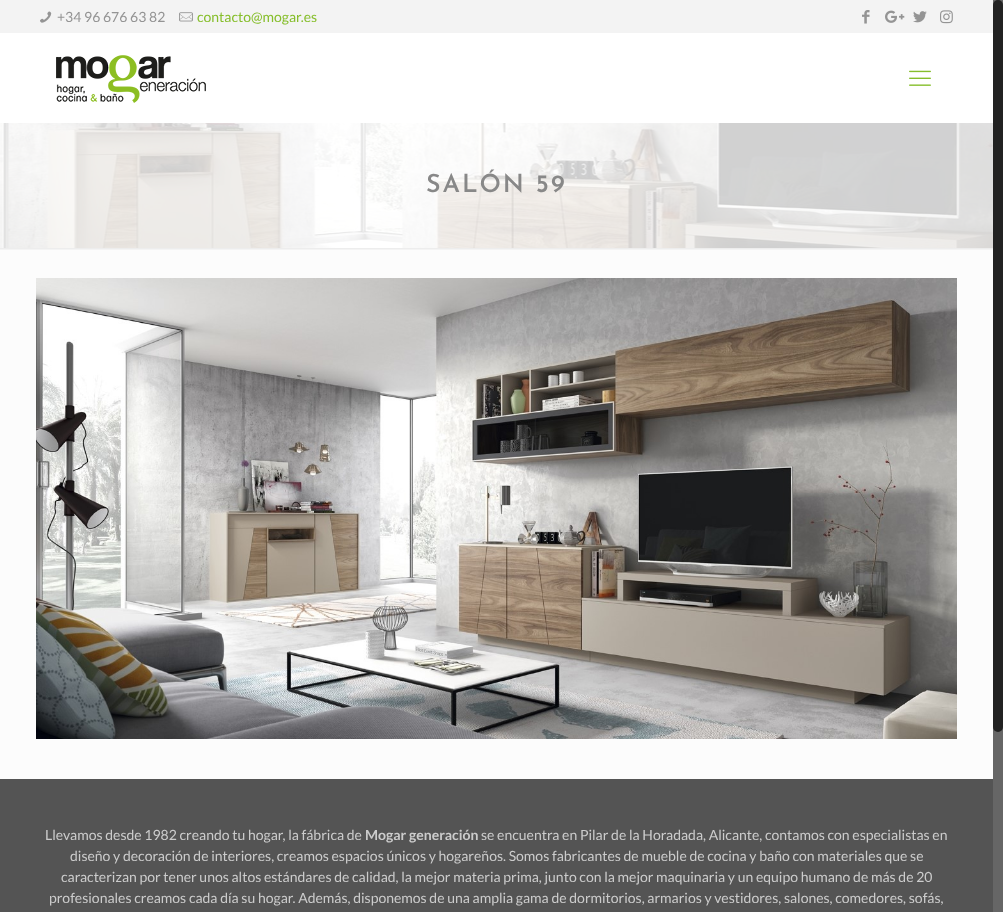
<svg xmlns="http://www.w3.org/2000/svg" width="1003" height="912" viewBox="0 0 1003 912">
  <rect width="100%" height="100%" fill="#fcfcfc"/>
  <image x="0" y="123" width="993" height="125" href="img/1.png"/>
  <path d="M0 0h993v33H0z" fill="#f3f3f3"/>
  <image x="40" y="11" width="12" height="12" href="img/2.png"/>
  <image x="179" y="12" width="14" height="10" href="img/3.png"/>
  <image x="862" y="10" width="8" height="14" href="img/4.png"/>
  <image x="885" y="10" width="20" height="13" href="img/5.png"/>
  <image x="913" y="11" width="14" height="12" href="img/6.png"/>
  <image x="940" y="10" width="13" height="14" href="img/7.png"/>
  <path d="M0 33h993v90H0z" fill="#fff"/>
  <image x="56" y="55" width="150" height="48" href="img/8.png"/>
  <image x="909" y="70" width="22" height="16" href="img/9.png"/>
  <path d="M0 123h993v125H0z" fill="#ffffffcc"/>
  <image x="0" y="248" width="993" height="2" href="img/10.png"/>
  <image x="36" y="278" width="921" height="461" href="img/11.png"/>
  <path d="M0 779h993v133H0z" fill="#545454"/>
  <path d="M993 0h10v912H993z" fill="#666"/>
  <rect x="993" width="10" height="732" rx="5" fill="#222"/>
  <text x="57" y="22" font-family="Lato" font-size="14" fill="#949494">+34 96 676 63 82</text>
  <text x="197" y="22" font-family="Lato" font-size="14" fill="#86be2b">contacto@mogar.es</text>
  <text x="426" y="192" font-family="Josefin Sans" font-size="25" font-weight="600" letter-spacing="2" fill="#888">SALÓN 59</text>
  <text x="45" y="840" font-family="Lato" font-size="14" fill="#ccc">Llevamos desde 1982 creando tu hogar, la fábrica de</text>
  <text x="365" y="840" font-family="Lato" font-size="14" font-weight="bold" fill="#ccc">Mogar generación</text>
  <g font-family="Lato" font-size="14" fill="#ccc">
    <text x="481" y="840">se encuentra en Pilar de la Horadada, Alicante, contamos con especialistas en</text>
    <text x="70" y="861">diseño y decoración de interiores, creamos espacios únicos y hogareños. Somos fabricantes de mueble de cocina y baño con materiales que se</text>
    <text x="61" y="882">caracterizan por tener unos altos estándares de calidad, la mejor materia prima, junto con la mejor maquinaria y un equipo humano de más de 20</text>
    <text x="49" y="903">profesionales creamos cada día su hogar. Además, disponemos de una amplia gama de dormitorios, armarios y vestidores, salones, comedores, sofás,</text>
  </g>
</svg>
